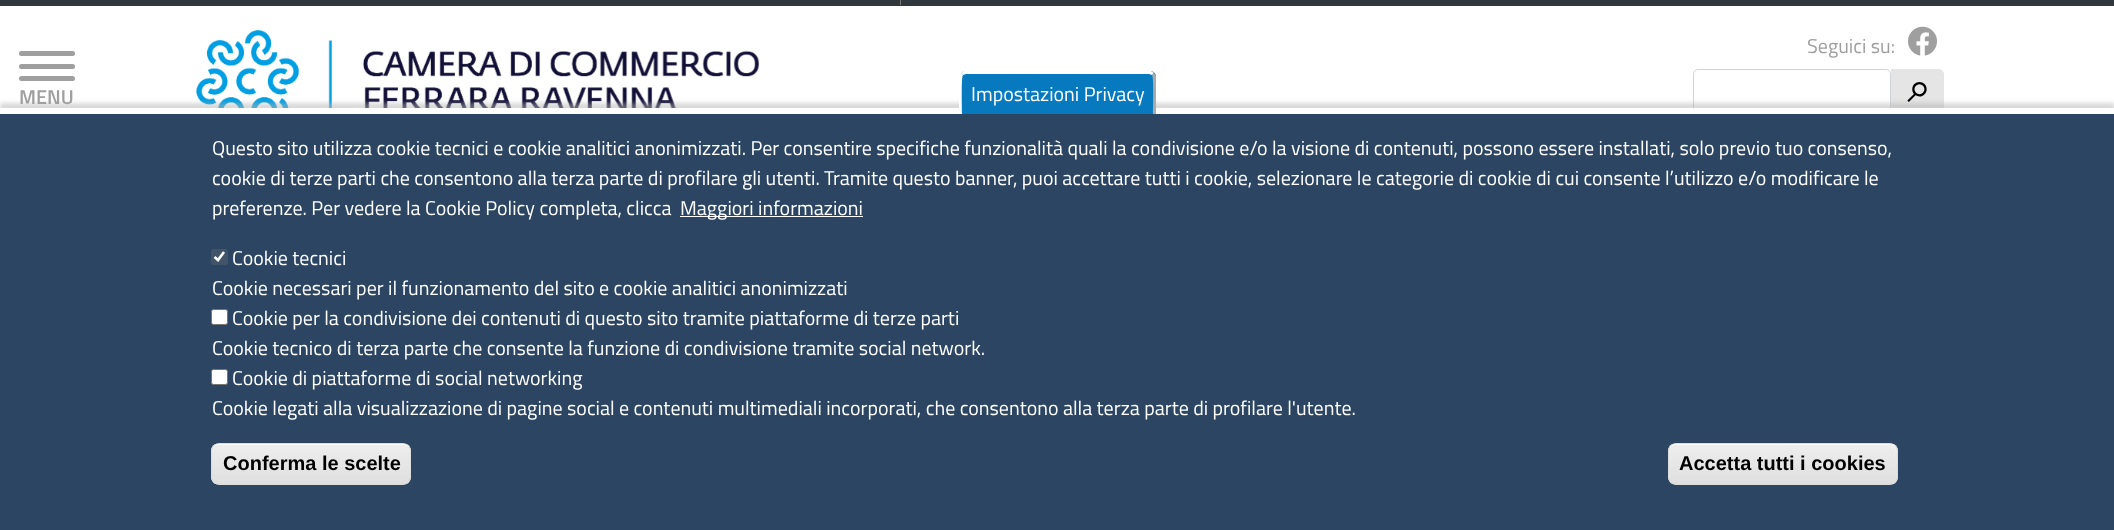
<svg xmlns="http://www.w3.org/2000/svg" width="2114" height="530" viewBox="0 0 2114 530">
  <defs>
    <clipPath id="clip1"><rect x="211" y="443" width="200" height="42" rx="8"/></clipPath>
    <linearGradient id="g1" gradientUnits="userSpaceOnUse" x1="311" y1="444" x2="311" y2="484"><stop offset="0.05" stop-color="#ededed"/><stop offset="1" stop-color="#dfdfdf"/></linearGradient>
    <clipPath id="clip2"><rect x="1668" y="443" width="230" height="42" rx="8"/></clipPath>
    <linearGradient id="g2" gradientUnits="userSpaceOnUse" x1="1783" y1="444" x2="1783" y2="484"><stop offset="0.05" stop-color="#ededed"/><stop offset="1" stop-color="#dfdfdf"/></linearGradient>
  </defs>
  <rect width="100%" height="100%" fill="#30373d"/>
  <path d="M900 0h1v5H900z" fill="#777674"/>
  <path d="M0 6h2114v102H0z" fill="#fff"/>
  <rect x="19" y="76" width="56" height="5" rx="2.5" fill="#9f9f9f"/>
  <rect x="19" y="51" width="56" height="5" rx="2.5" fill="#9f9f9f"/>
  <rect x="19" y="64" width="56" height="5" rx="2.5" fill="#9f9f9f"/>
  <image x="196" y="30" width="564" height="78" href="img/1.png"/>
  <image x="1908" y="26" width="29" height="30" href="img/2.png"/>
  <rect x="1693.5" y="69.5" width="197" height="46" rx="4.5" fill="none" stroke="#ced4da"/>
  <path d="M1891.5 69.5H1939C1941.5 69.5 1943.5 71.5 1943.5 74V111C1943.5 113.5 1941.5 115.5 1939 115.5H1891.5Z" fill="#e5e5e5" stroke="#e5e5e5"/>
  <path d="M0 103h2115v422H0z" fill="#b4b4b480" filter="blur(2px)"/>
  <path d="M0 114h2114v416H0z" fill="#2b4562"/>
  <path d="M0 108h2114v6H0z" fill="#fff"/>
  <path d="M966 71H1150C1153.5 71 1156 73.5 1156 77V114H960V77C960 73.5 962.5 71 966 71Z" fill="#0779bf"/>
  <path d="M966 74L963 75L961 73L964 71H1151L1154 73L1152 75L1149 74Z" fill="#fff"/>
  <path d="M1153 114C1153 109 1154 77 1152 75L1154 73L1156 76V114Z" fill="#aaa"/>
  <path d="M959 114V76L961 73L963 75C961 77 962 108 962 114Z" fill="#fff"/>
  <path d="M680 216h183v1H680z" fill="#fff"/>
  <rect x="211" y="249" width="17" height="16" rx="2.5" fill="#425468"/>
  <path d="M214.5 257L218 260L224 252" fill="none" stroke="#fff" stroke-width="2.6"/>
  <rect x="211.5" y="309.5" width="16" height="15" rx="2" fill="#fff" stroke="#767676"/>
  <rect x="211.5" y="369.5" width="16" height="15" rx="2" fill="#fff" stroke="#767676"/>
  <g clip-path="url(#clip1)">
    <path d="M211 444h200v40H211z" fill="url(#g1)"/>
  </g>
  <path d="M219 445H404C407 445 410 448 410 451V450C410 447 407 444 404 444H219C217 444 215 445 214 447C215 446 217 445 219 445Z" fill="#fff"/>
  <rect x="211.5" y="443.5" width="199" height="41" rx="7.5" fill="none" stroke="#dcdcdc"/>
  <g clip-path="url(#clip2)">
    <path d="M1668 444h230v40H1668z" fill="url(#g2)"/>
  </g>
  <path d="M1675 445H1890C1893 445 1896 448 1896 451V450C1896 447 1893 444 1890 444H1675C1672 444 1669 447 1669 450V451C1669 448 1672 445 1675 445Z" fill="#fff"/>
  <rect x="1668.5" y="443.5" width="229" height="41" rx="7.5" fill="none" stroke="#dcdcdc"/>
  <text x="19" y="104" font-family="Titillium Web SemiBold" font-size="20" font-weight="600" fill="#9f9f9f">MENU</text>
  <text x="1807" y="53" font-family="Titillium Web" font-size="20" fill="#9f9f9f">Seguici su:</text>
  <text x="1907" y="102" font-family="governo" font-size="20" fill="#000">h</text>
  <g font-family="Titillium Web" font-size="20" fill="#fff">
    <text x="971" y="101">Impostazioni Privacy</text>
    <text x="212" y="155">Questo sito utilizza cookie tecnici e cookie analitici anonimizzati. Per consentire specifiche funzionalità quali la condivisione e/o la visione di contenuti, possono essere installati, solo previo tuo consenso,</text>
    <text x="212" y="185">cookie di terze parti che consentono alla terza parte di profilare gli utenti. Tramite questo banner, puoi accettare tutti i cookie, selezionare le categorie di cookie di cui consente l’utilizzo e/o modificare le</text>
    <text x="212" y="215">preferenze. Per vedere la Cookie Policy completa, clicca</text>
    <text x="680" y="215">Maggiori informazioni</text>
    <text x="232" y="265">Cookie tecnici</text>
    <text x="212" y="295">Cookie necessari per il funzionamento del sito e cookie analitici anonimizzati</text>
    <text x="232" y="325">Cookie per la condivisione dei contenuti di questo sito tramite piattaforme di terze parti</text>
    <text x="212" y="355">Cookie tecnico di terza parte che consente la funzione di condivisione tramite social network.</text>
    <text x="232" y="385">Cookie di piattaforme di social networking</text>
    <text x="212" y="415">Cookie legati alla visualizzazione di pagine social e contenuti multimediali incorporati, che consentono alla terza parte di profilare l'utente.</text>
  </g>
  <g font-family="Liberation Sans" font-size="20" font-weight="bold" fill="#000">
    <text x="223" y="470">Conferma le scelte</text>
    <text x="1679" y="470">Accetta tutti i cookies</text>
  </g>
</svg>
